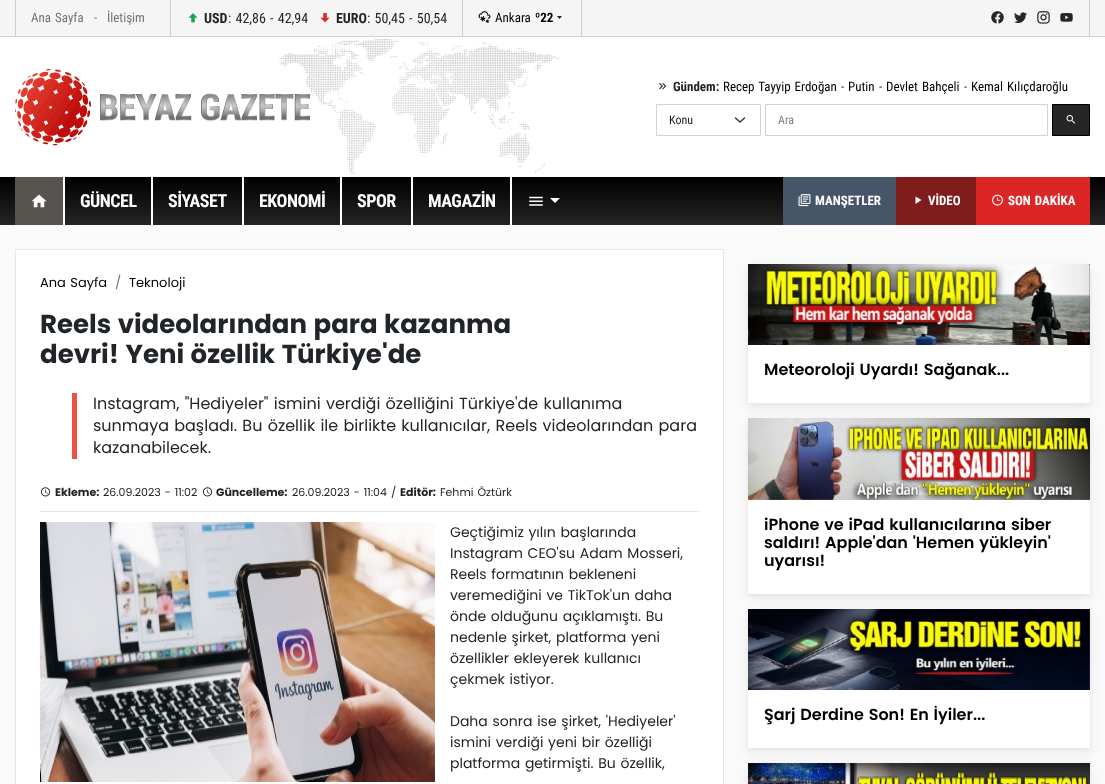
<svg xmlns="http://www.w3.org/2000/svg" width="1105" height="784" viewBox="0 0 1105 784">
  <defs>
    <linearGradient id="g1" gradientUnits="userSpaceOnUse" x1="553" y1="225" x2="553" y2="177"><stop offset="0" stop-color="#252525"/><stop offset="0.54" stop-color="#121111"/><stop offset="1" stop-color="#000"/></linearGradient>
  </defs>
  <rect width="100%" height="100%" fill="#fafafa"/>
  <path d="M0 0h1105v36H0z" fill="#f5f5f5"/>
  <path d="M0 36h1105v1H0z" fill="#d6d3d1"/>
  <path d="M170 0h1v36H170z" fill="#ccc"/>
  <path d="M15 0h1v36H15z" fill="#ccc"/>
  <path d="M462 0h1v36H462z" fill="#ccc"/>
  <image x="188" y="13" width="10" height="10" href="img/1.png"/>
  <image x="320" y="13" width="10" height="10" href="img/2.png"/>
  <path d="M581 0h1v36H581z" fill="#ccc"/>
  <image x="478" y="11" width="13" height="12" href="img/3.png"/>
  <path d="M557 16L559.5 19L562 16Z" fill="#212529"/>
  <path d="M1089 0h1v36H1089z" fill="#ccc"/>
  <image x="991" y="11" width="13" height="13" href="img/4.png"/>
  <image x="1014" y="12" width="13" height="11" href="img/5.png"/>
  <image x="1037" y="11" width="13" height="13" href="img/6.png"/>
  <image x="1060" y="13" width="13" height="9" href="img/7.png"/>
  <path d="M0 37h1105v140H0z" fill="#fff"/>
  <image x="279" y="39" width="280" height="135" href="img/8.png"/>
  <image x="15" y="69" width="295" height="77" href="img/9.png"/>
  <image x="659" y="83" width="8" height="7" href="img/10.png"/>
  <path d="M735.5 118L740 122L744.5 118" fill="none" stroke="#343a40" stroke-width="1.5" stroke-linecap="round" stroke-linejoin="round"/>
  <path d="M656.5 104.5h104v31H656.5z" fill="none" stroke="#ced4da"/>
  <path d="M765.5 104.5h282v31H765.5z" fill="none" stroke="#ced4da"/>
  <path d="M1052.5 104.5h37v31H1052.5z" fill="#262626" stroke="#000"/>
  <image x="1066" y="115" width="10" height="9" href="img/11.png"/>
  <path d="M0 177h1105v48H0z" fill="url(#g1)"/>
  <path d="M15 177h48v48H15z" fill="#57534e"/>
  <image x="31" y="194" width="16" height="14" href="img/12.png"/>
  <path d="M63 177h2v48H63z" fill="#fff"/>
  <path d="M151 177h2v48H151z" fill="#fff"/>
  <path d="M242 177h2v48H242z" fill="#fff"/>
  <path d="M340 177h2v48H340z" fill="#fff"/>
  <path d="M411 177h2v48H411z" fill="#fff"/>
  <path d="M510 177h2v48H510z" fill="#fff"/>
  <image x="529" y="196" width="14" height="10" href="img/13.png"/>
  <path d="M550 198H560L555 203Z" fill="#fff"/>
  <path d="M783 177h113v48H783z" fill="#475569"/>
  <image x="798" y="194" width="13" height="13" href="img/14.png"/>
  <path d="M896 177h80v48H896z" fill="#7f1d1d"/>
  <path d="M915.5 196.5V204L921.5 200Z" fill="#fff"/>
  <path d="M976 177h114v48H976z" fill="#dc2626"/>
  <image x="992" y="194" width="11" height="12" href="img/15.png"/>
  <path d="M15.5 249.5h708v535H15.5z" fill="#fff" stroke="#e6e6e6"/>
  <path d="M72 393h5v66H72z" fill="#ec5241"/>
  <path d="M40 511h659v1H40z" fill="#e7e5e4"/>
  <image x="40" y="487" width="11" height="10" href="img/16.png"/>
  <image x="202" y="487" width="11" height="10" href="img/16.png"/>
  <image x="40" y="522" width="395" height="260" href="img/17.png"/>
  <path d="M748 266h342v139H748z" fill="#0000000d" filter="blur(2.5px)"/>
  <path d="M748 270h342v139H748z" fill="#0000000d" filter="blur(6.5px)"/>
  <image x="748" y="264" width="342" height="81" href="img/18.png"/>
  <path d="M748 345h342v58H748z" fill="#fff"/>
  <path d="M748 420h342v176H748z" fill="#0000000d" filter="blur(2.5px)"/>
  <path d="M748 424h342v176H748z" fill="#0000000d" filter="blur(6.5px)"/>
  <image x="748" y="418" width="342" height="82" href="img/19.png"/>
  <path d="M748 500h342v94H748z" fill="#fff"/>
  <path d="M748 611h342v139H748z" fill="#0000000d" filter="blur(2.5px)"/>
  <path d="M748 615h342v139H748z" fill="#0000000d" filter="blur(6.5px)"/>
  <image x="748" y="609" width="342" height="81" href="img/20.png"/>
  <path d="M748 690h342v58H748z" fill="#fff"/>
  <path d="M748 765h342v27H748z" fill="#0000000d" filter="blur(2.5px)"/>
  <path d="M748 769h342v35H748z" fill="#0000000d" filter="blur(6.5px)"/>
  <image x="748" y="763" width="342" height="21" href="img/21.png"/>
  <g font-family="Roboto Condensed" font-size="13" fill="#78716c">
    <text x="31" y="22" word-spacing="1">Ana Sayfa</text>
    <text x="94" y="22">-</text>
    <text x="107" y="22">İletişim</text>
  </g>
  <text x="204" y="23" font-family="Roboto Condensed" font-size="14" font-weight="bold" fill="#212529">USD</text>
  <text x="228" y="23" word-spacing="1" font-family="Roboto Condensed" font-size="14" fill="#212529">: 42,86 - 42,94</text>
  <text x="336" y="23" font-family="Roboto Condensed" font-size="14" font-weight="bold" fill="#212529">EURO</text>
  <text x="367" y="23" word-spacing="1" font-family="Roboto Condensed" font-size="14" fill="#212529">: 50,45 - 50,54</text>
  <text x="495" y="22" font-family="Roboto Condensed" font-size="13" fill="#000">Ankara</text>
  <text x="535" y="22" font-family="Roboto Condensed" font-size="13" font-weight="bold" fill="#000">º22</text>
  <text x="673" y="91" font-family="Roboto Condensed" font-size="13" font-weight="bold" fill="#212529">Gündem:</text>
  <text x="723" y="91" word-spacing="1" font-family="Roboto Condensed" font-size="13" fill="#000">Recep Tayyip Erdoğan</text>
  <text x="841" y="91" font-family="Roboto Condensed" font-size="13" fill="#212529">-</text>
  <text x="848" y="91" font-family="Roboto Condensed" font-size="13" fill="#000">Putin</text>
  <text x="879" y="91" font-family="Roboto Condensed" font-size="13" fill="#212529">-</text>
  <text x="886" y="91" word-spacing="1" font-family="Roboto Condensed" font-size="13" fill="#000">Devlet Bahçeli</text>
  <text x="964" y="91" font-family="Roboto Condensed" font-size="13" fill="#212529">-</text>
  <text x="971" y="91" word-spacing="1" font-family="Roboto Condensed" font-size="13" fill="#000">Kemal Kılıçdaroğlu</text>
  <text x="669" y="124" font-family="Roboto Condensed" font-size="12" fill="#212529">Konu</text>
  <text x="778" y="124" font-family="Roboto Condensed" font-size="12" fill="#808080">Ara</text>
  <g font-family="Roboto Condensed" font-size="18" font-weight="bold" letter-spacing="-0.5" fill="#fff">
    <text x="80" y="207">GÜNCEL</text>
    <text x="168" y="207">SİYASET</text>
    <text x="259" y="207">EKONOMİ</text>
    <text x="357" y="207">SPOR</text>
    <text x="428" y="207">MAGAZİN</text>
  </g>
  <g font-family="Roboto Condensed" font-size="13" font-weight="bold" fill="#fff">
    <text x="815" y="205">MANŞETLER</text>
    <text x="928" y="205">VİDEO</text>
    <text x="1008" y="205" word-spacing="1">SON DAKİKA</text>
  </g>
  <text x="40" y="287" word-spacing="1" font-family="Poppins" font-size="13" fill="#000">Ana Sayfa</text>
  <text x="115" y="287" font-family="Poppins" font-size="13" fill="#6c757d">/</text>
  <text x="129" y="287" font-family="Poppins" font-size="13" fill="#000">Teknoloji</text>
  <g font-family="Poppins" font-size="26" font-weight="bold" fill="#212529">
    <text x="40" y="333" word-spacing="1">Reels videolarından para kazanma</text>
    <text x="40" y="363" word-spacing="1">devri! Yeni özellik Türkiye'de</text>
  </g>
  <g font-family="Poppins" font-size="16" fill="#212529">
    <text x="93" y="409" word-spacing="1">Instagram, "Hediyeler" ismini verdiği özelliğini Türkiye'de kullanıma</text>
    <text x="93" y="431" word-spacing="1">sunmaya başladı. Bu özellik ile birlikte kullanıcılar, Reels videolarından para</text>
    <text x="93" y="453">kazanabilecek.</text>
  </g>
  <text x="55" y="496" font-family="Poppins" font-size="11" font-weight="bold" fill="#212529">Ekleme:</text>
  <text x="103" y="496" word-spacing="1" font-family="Poppins" font-size="11" fill="#212529">26.09.2023 - 11:02</text>
  <text x="216" y="496" font-family="Poppins" font-size="11" font-weight="bold" fill="#212529">Güncelleme:</text>
  <text x="292" y="496" word-spacing="1" font-family="Poppins" font-size="11" fill="#212529">26.09.2023 - 11:04 /</text>
  <text x="400" y="496" font-family="Poppins" font-size="11" font-weight="bold" fill="#212529">Editör:</text>
  <text x="440" y="496" word-spacing="1" font-family="Poppins" font-size="11" fill="#212529">Fehmi Öztürk</text>
  <g font-family="Poppins" font-size="14" fill="#212529">
    <text x="450" y="537" word-spacing="1">Geçtiğimiz yılın başlarında</text>
    <text x="450" y="558" word-spacing="1">Instagram CEO'su Adam Mosseri,</text>
    <text x="450" y="579" word-spacing="1">Reels formatının bekleneni</text>
    <text x="450" y="600" word-spacing="1">veremediğini ve TikTok'un daha</text>
    <text x="450" y="621" word-spacing="1">önde olduğunu açıklamıştı. Bu</text>
    <text x="450" y="642" word-spacing="1">nedenle şirket, platforma yeni</text>
    <text x="450" y="663" word-spacing="1">özellikler ekleyerek kullanıcı</text>
    <text x="450" y="684" word-spacing="1">çekmek istiyor.</text>
    <text x="450" y="726" word-spacing="1">Daha sonra ise şirket, 'Hediyeler'</text>
    <text x="450" y="747" word-spacing="1">ismini verdiği yeni bir özelliği</text>
    <text x="450" y="768" word-spacing="1">platforma getirmişti. Bu özellik,</text>
  </g>
  <g font-family="Poppins" font-size="16" font-weight="600" fill="#000">
    <text x="764" y="375" word-spacing="1">Meteoroloji Uyardı! Sağanak...</text>
    <text x="764" y="530" word-spacing="1">iPhone ve iPad kullanıcılarına siber</text>
    <text x="764" y="548" word-spacing="1">saldırı! Apple'dan 'Hemen yükleyin'</text>
    <text x="764" y="566">uyarısı!</text>
    <text x="764" y="720" word-spacing="1">Şarj Derdine Son! En İyiler...</text>
  </g>
</svg>
